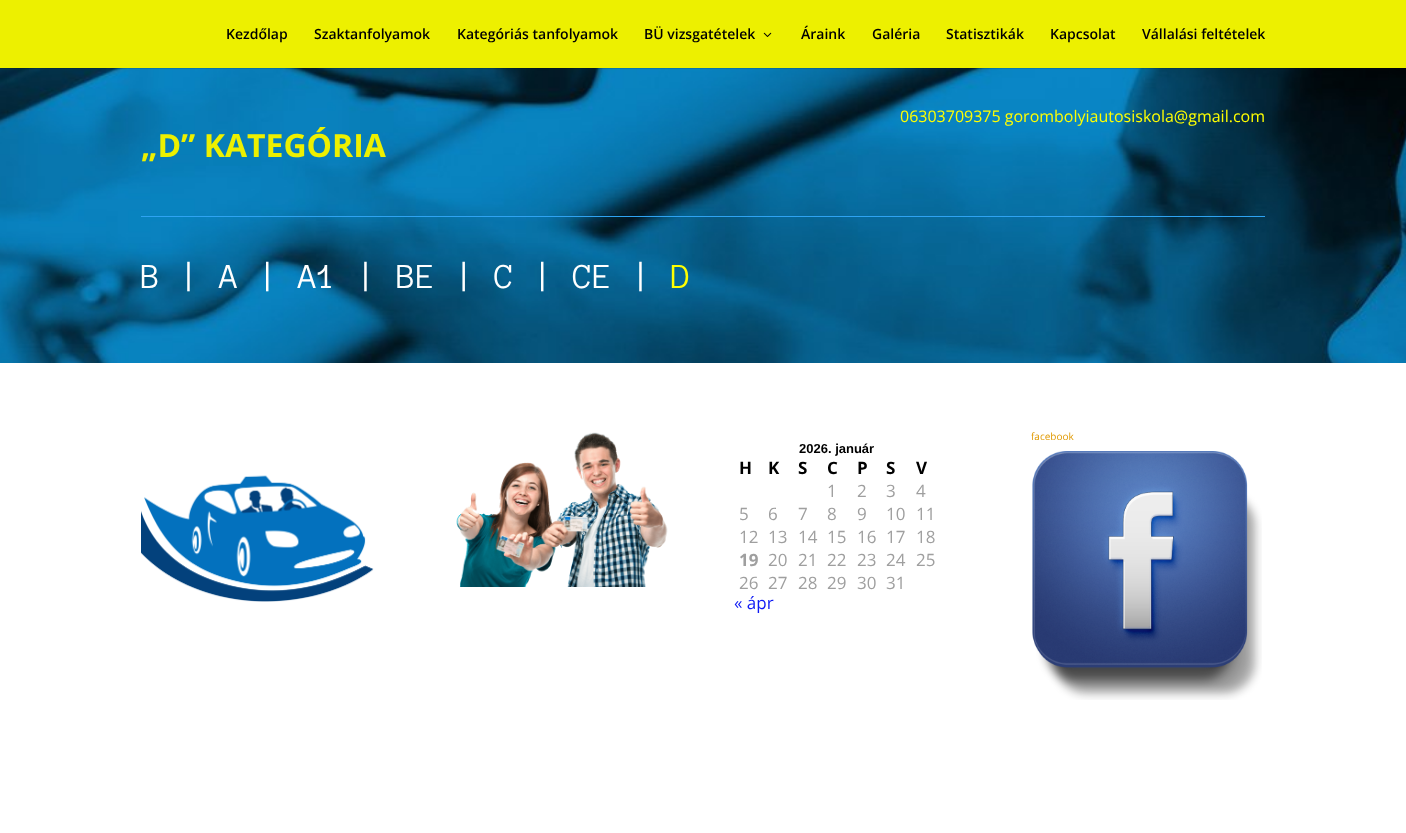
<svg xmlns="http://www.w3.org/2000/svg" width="1406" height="833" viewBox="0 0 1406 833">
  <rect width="100%" height="100%" fill="#fff"/>
  <image x="0" y="68" width="1406" height="295" href="img/2.png"/>
  <path d="M0 68h1299v1H0z" fill="#0000001a"/>
  <path d="M0 0h1406v68H0z" fill="#edf000"/>
  <image x="763" y="32" width="9" height="5" href="img/1.png"/>
  <path d="M141 216h1124v1H141z" fill="#2ea3f2"/>
  <image x="456" y="432" width="212" height="155" href="img/3.png"/>
  <image x="1032" y="451" width="230" height="249" href="img/4.png"/>
  <image x="141" y="475" width="233" height="127" href="img/5.png"/>
  <g font-family="Open Sans" font-size="14" font-weight="600" fill="#000">
    <text x="226" y="39">Kezdőlap</text>
    <text x="314" y="39">Szaktanfolyamok</text>
    <text x="457" y="39">Kategóriás tanfolyamok</text>
    <text x="644" y="39">BÜ vizsgatételek</text>
    <text x="801" y="39">Áraink</text>
    <text x="872" y="39">Galéria</text>
    <text x="946" y="39">Statisztikák</text>
    <text x="1050" y="39">Kapcsolat</text>
    <text x="1142" y="39">Vállalási feltételek</text>
  </g>
  <text x="900" y="122" font-family="Open Sans" font-size="16" fill="#ff0">06303709375 gorombolyiautosiskola@gmail.com</text>
  <text x="141" y="157" font-family="Open Sans" font-size="32" font-weight="bold" fill="#edf000">„D” KATEGÓRIA</text>
  <text x="141" y="288" font-family="Anonymous Pro" font-size="36" fill="#fff">B | A | A1 | BE | C | CE |</text>
  <text x="671" y="288" font-family="Anonymous Pro" font-size="36" fill="#ff0">D</text>
  <text x="1031" y="440" font-family="Open Sans" font-size="10" fill="#e09900">facebook</text>
  <text x="799" y="453" font-family="Liberation Sans" font-size="13" font-weight="bold" fill="#000">2026. január</text>
  <g font-family="Open Sans" font-size="17" font-weight="bold" fill="#000">
    <text x="739" y="474">H</text>
    <text x="768" y="474">K</text>
    <text x="798" y="474">S</text>
    <text x="827" y="474">C</text>
    <text x="857" y="474">P</text>
    <text x="886" y="474">S</text>
    <text x="916" y="474">V</text>
  </g>
  <g font-family="Open Sans" font-size="17" fill="#9f9f9f">
    <text x="827" y="497">1</text>
    <text x="857" y="497">2</text>
    <text x="886" y="497">3</text>
    <text x="916" y="497">4</text>
    <text x="739" y="520">5</text>
    <text x="768" y="520">6</text>
    <text x="798" y="520">7</text>
    <text x="827" y="520">8</text>
    <text x="857" y="520">9</text>
    <text x="886" y="520">10</text>
    <text x="916" y="520">11</text>
    <text x="739" y="543">12</text>
    <text x="768" y="543">13</text>
    <text x="798" y="543">14</text>
    <text x="827" y="543">15</text>
    <text x="857" y="543">16</text>
    <text x="886" y="543">17</text>
    <text x="916" y="543">18</text>
  </g>
  <text x="739" y="566" font-family="Open Sans" font-size="17" font-weight="bold" fill="#9f9f9f">19</text>
  <g font-family="Open Sans" font-size="17" fill="#9f9f9f">
    <text x="768" y="566">20</text>
    <text x="798" y="566">21</text>
    <text x="827" y="566">22</text>
    <text x="857" y="566">23</text>
    <text x="886" y="566">24</text>
    <text x="916" y="566">25</text>
    <text x="739" y="589">26</text>
    <text x="768" y="589">27</text>
    <text x="798" y="589">28</text>
    <text x="827" y="589">29</text>
    <text x="857" y="589">30</text>
    <text x="886" y="589">31</text>
  </g>
  <text x="734" y="609" font-family="Open Sans" font-size="17" fill="#0e1af4">« ápr</text>
</svg>
